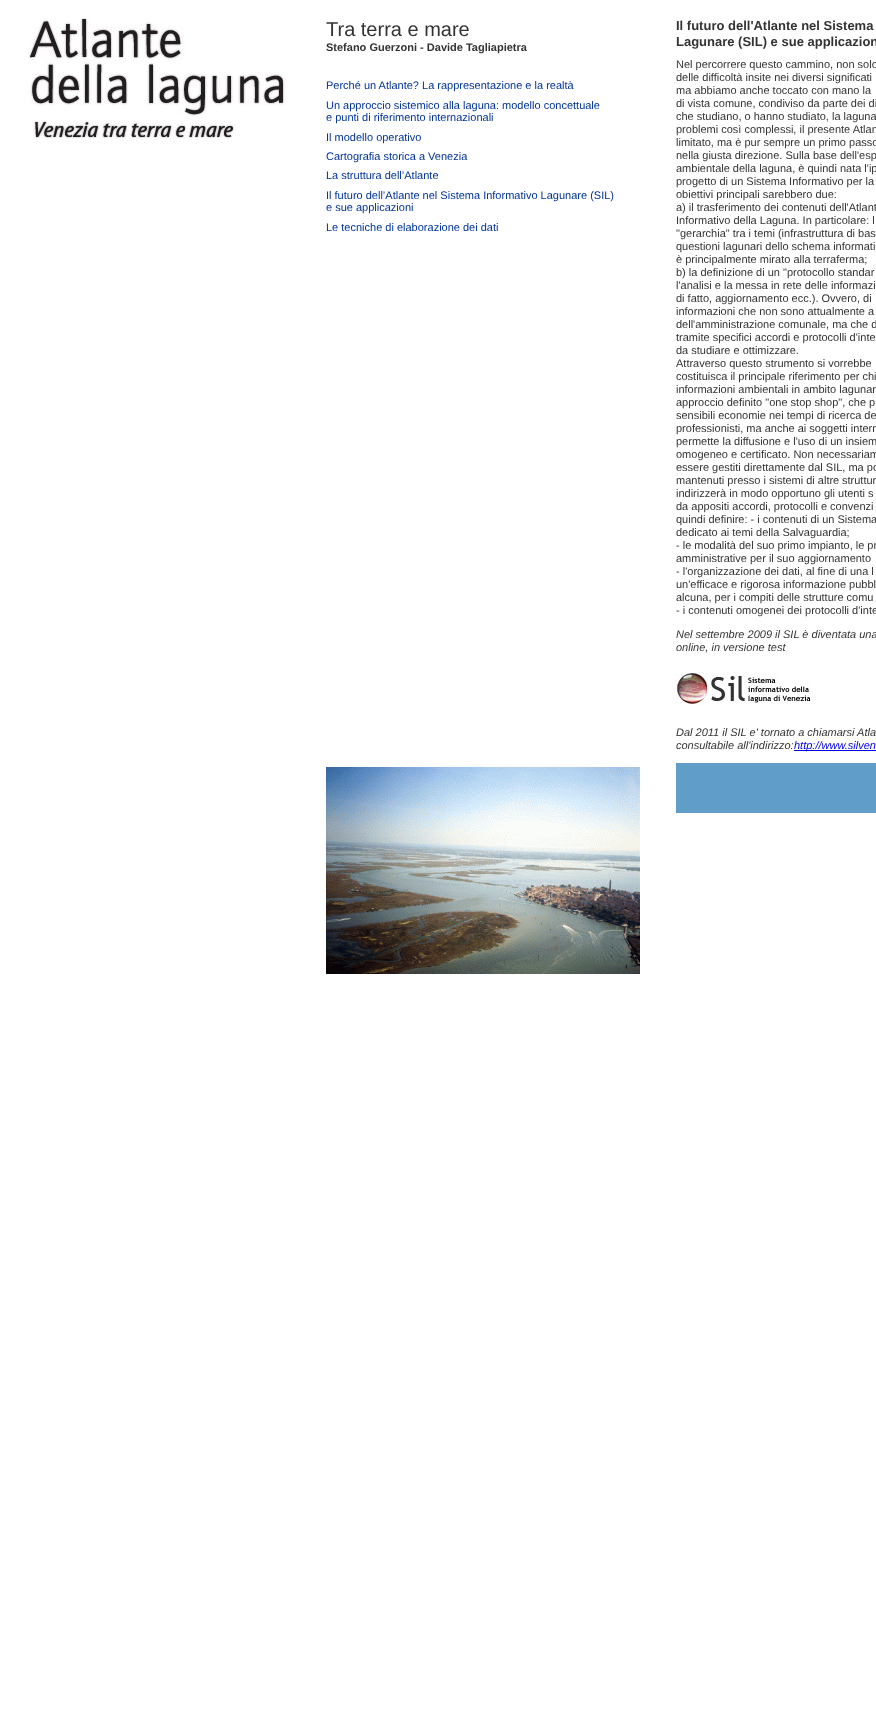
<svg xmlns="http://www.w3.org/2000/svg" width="876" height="1736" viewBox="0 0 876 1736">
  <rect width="100%" height="100%" fill="#fff"/>
  <image x="27" y="18" width="259" height="121" href="img/1.png"/>
  <image x="326" y="767" width="314" height="207" href="img/2.png"/>
  <image x="676" y="673" width="135" height="32" href="img/3.png"/>
  <path d="M794 750h82v1H794z" fill="#00e"/>
  <path d="M676 763h200v50H676z" fill="#609dc9"/>
  <text x="326" y="36" font-family="Liberation Sans" font-size="20" fill="#333">Tra terra e mare</text>
  <text x="326" y="51" font-family="Liberation Sans" font-size="11" font-weight="bold" fill="#333">Stefano Guerzoni - Davide Tagliapietra</text>
  <g font-family="Liberation Sans" font-size="11" fill="#039">
    <text x="326" y="89">Perché un Atlante? La rappresentazione e la realtà</text>
    <text x="326" y="109">Un approccio sistemico alla laguna: modello concettuale</text>
    <text x="326" y="121">e punti di riferimento internazionali</text>
    <text x="326" y="141">Il modello operativo</text>
    <text x="326" y="160">Cartografia storica a Venezia</text>
    <text x="326" y="179">La struttura dell’Atlante</text>
    <text x="326" y="199">Il futuro dell’Atlante nel Sistema Informativo Lagunare (SIL)</text>
    <text x="326" y="211">e sue applicazioni</text>
    <text x="326" y="231">Le tecniche di elaborazione dei dati</text>
  </g>
  <g font-family="Liberation Sans" font-size="13" font-weight="bold" fill="#333">
    <text x="676" y="30">Il futuro dell'Atlante nel Sistema</text>
    <text x="676" y="46">Lagunare (SIL) e sue applicazion</text>
  </g>
  <g font-family="Liberation Sans" font-size="11" fill="#333">
    <text x="676" y="68">Nel percorrere questo cammino, non solo</text>
    <text x="676" y="81">delle difficoltà insite nei diversi significati</text>
    <text x="676" y="94">ma abbiamo anche toccato con mano la</text>
    <text x="676" y="107">di vista comune, condiviso da parte dei di</text>
    <text x="676" y="120">che studiano, o hanno studiato, la laguna</text>
    <text x="676" y="133">problemi così complessi, il presente Atlan</text>
    <text x="676" y="146">limitato, ma è pur sempre un primo passo</text>
    <text x="676" y="159">nella giusta direzione. Sulla base dell'esp</text>
    <text x="676" y="172">ambientale della laguna, è quindi nata l'ip</text>
    <text x="676" y="185">progetto di un Sistema Informativo per la</text>
    <text x="676" y="198">obiettivi principali sarebbero due:</text>
    <text x="676" y="211">a) il trasferimento dei contenuti dell'Atlant</text>
    <text x="676" y="224">Informativo della Laguna. In particolare: l</text>
    <text x="676" y="237">"gerarchia" tra i temi (infrastruttura di bas</text>
    <text x="676" y="250">questioni lagunari dello schema informati</text>
    <text x="676" y="263">è principalmente mirato alla terraferma;</text>
    <text x="676" y="276">b) la definizione di un "protocollo standar</text>
    <text x="676" y="289">l'analisi e la messa in rete delle informazi</text>
    <text x="676" y="302">di fatto, aggiornamento ecc.). Ovvero, di</text>
    <text x="676" y="315">informazioni che non sono attualmente a</text>
    <text x="676" y="328">dell'amministrazione comunale, ma che d</text>
    <text x="676" y="341">tramite specifici accordi e protocolli d'inte</text>
    <text x="676" y="354">da studiare e ottimizzare.</text>
    <text x="676" y="367">Attraverso questo strumento si vorrebbe</text>
    <text x="676" y="380">costituisca il principale riferimento per chi</text>
    <text x="676" y="393">informazioni ambientali in ambito lagunar</text>
    <text x="676" y="406">approccio definito "one stop shop", che p</text>
    <text x="676" y="419">sensibili economie nei tempi di ricerca de</text>
    <text x="676" y="432">professionisti, ma anche ai soggetti intern</text>
    <text x="676" y="445">permette la diffusione e l'uso di un insiem</text>
    <text x="676" y="458">omogeneo e certificato. Non necessariam</text>
    <text x="676" y="471">essere gestiti direttamente dal SIL, ma po</text>
    <text x="676" y="484">mantenuti presso i sistemi di altre</text>
    <text x="842" y="484">struttur</text>
    <text x="676" y="497">indirizzerà in modo opportuno gli utenti s</text>
    <text x="676" y="510">da appositi accordi, protocolli e convenzi</text>
    <text x="676" y="523">quindi definire: - i contenuti di un Sistema</text>
    <text x="676" y="536">dedicato ai temi della Salvaguardia;</text>
    <text x="676" y="549">- le modalità del suo primo impianto, le pr</text>
    <text x="676" y="562">amministrative per il suo aggiornamento</text>
    <text x="676" y="575">- l'organizzazione dei dati, al fine di una l</text>
    <text x="676" y="588">un'efficace e rigorosa informazione pubbl</text>
    <text x="676" y="601">alcuna, per i compiti delle strutture comu</text>
    <text x="676" y="614">- i contenuti omogenei dei protocolli d'inte</text>
  </g>
  <g font-family="Liberation Sans" font-size="11" font-style="italic" fill="#333">
    <text x="676" y="638">Nel settembre 2009 il SIL è diventata una</text>
    <text x="676" y="651">online, in versione test</text>
    <text x="676" y="736">Dal 2011 il SIL e' tornato a chiamarsi Atla</text>
    <text x="676" y="749">consultabile all'indirizzo:</text>
  </g>
  <text x="794" y="749" font-family="Liberation Sans" font-size="11" font-style="italic" fill="#00e">http://www.silven</text>
</svg>
